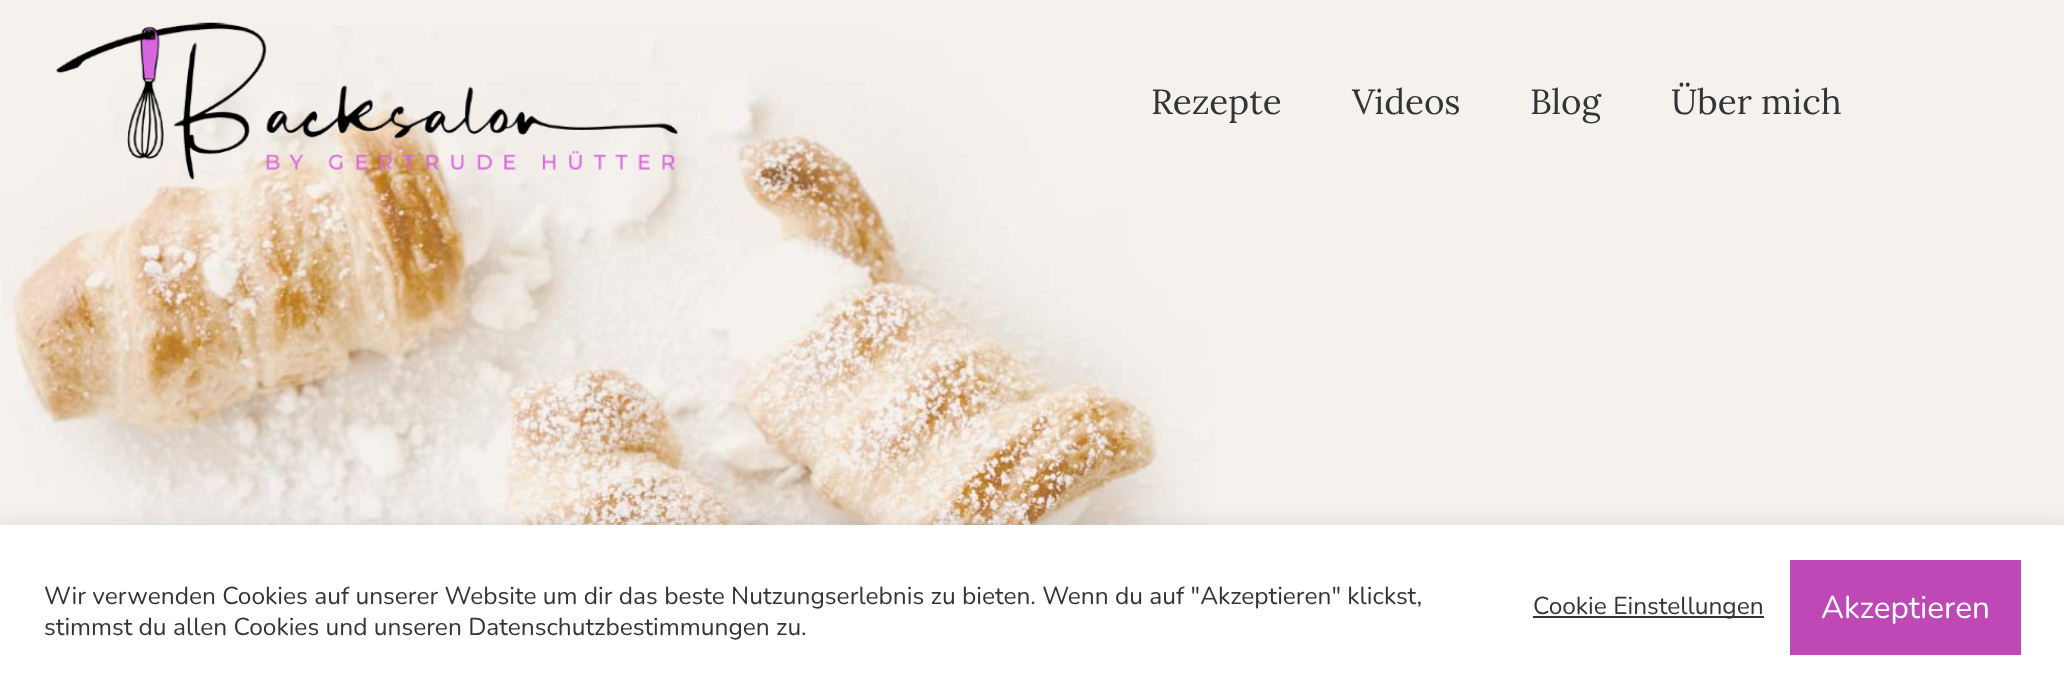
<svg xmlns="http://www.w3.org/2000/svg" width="2064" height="689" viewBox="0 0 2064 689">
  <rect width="100%" height="100%" fill="#f5f2ed"/>
  <image x="3" y="26" width="1212" height="499" href="img/1.png"/>
  <image x="56" y="22" width="622" height="158" href="img/2.png"/>
  <path d="M0 523h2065v165H0z" fill="#acabab4d" filter="blur(9px)"/>
  <path d="M0 525h2064v164H0z" fill="#fff"/>
  <path d="M1533 616h231v2H1533z" fill="#333"/>
  <path d="M1790 560h231v95H1790z" fill="#bf48b7"/>
  <g font-family="Lora" font-size="35" fill="#333436">
    <text x="1151" y="114">Rezepte</text>
    <text x="1352" y="114">Videos</text>
    <text x="1530" y="114">Blog</text>
    <text x="1671" y="114">Über mich</text>
  </g>
  <g font-family="Nunito" font-size="24.5" fill="#333436">
    <text x="44" y="604">Wir verwenden Cookies auf unserer Website um dir das beste Nutzungserlebnis zu bieten. Wenn du auf "Akzeptieren" klickst,</text>
    <text x="44" y="635">stimmst du allen Cookies und unseren Datenschutzbestimmungen zu.</text>
    <text x="1533" y="614">Cookie Einstellungen</text>
  </g>
  <text x="1821" y="618" font-family="Nunito" font-size="31.5" fill="#fff">Akzeptieren</text>
</svg>
